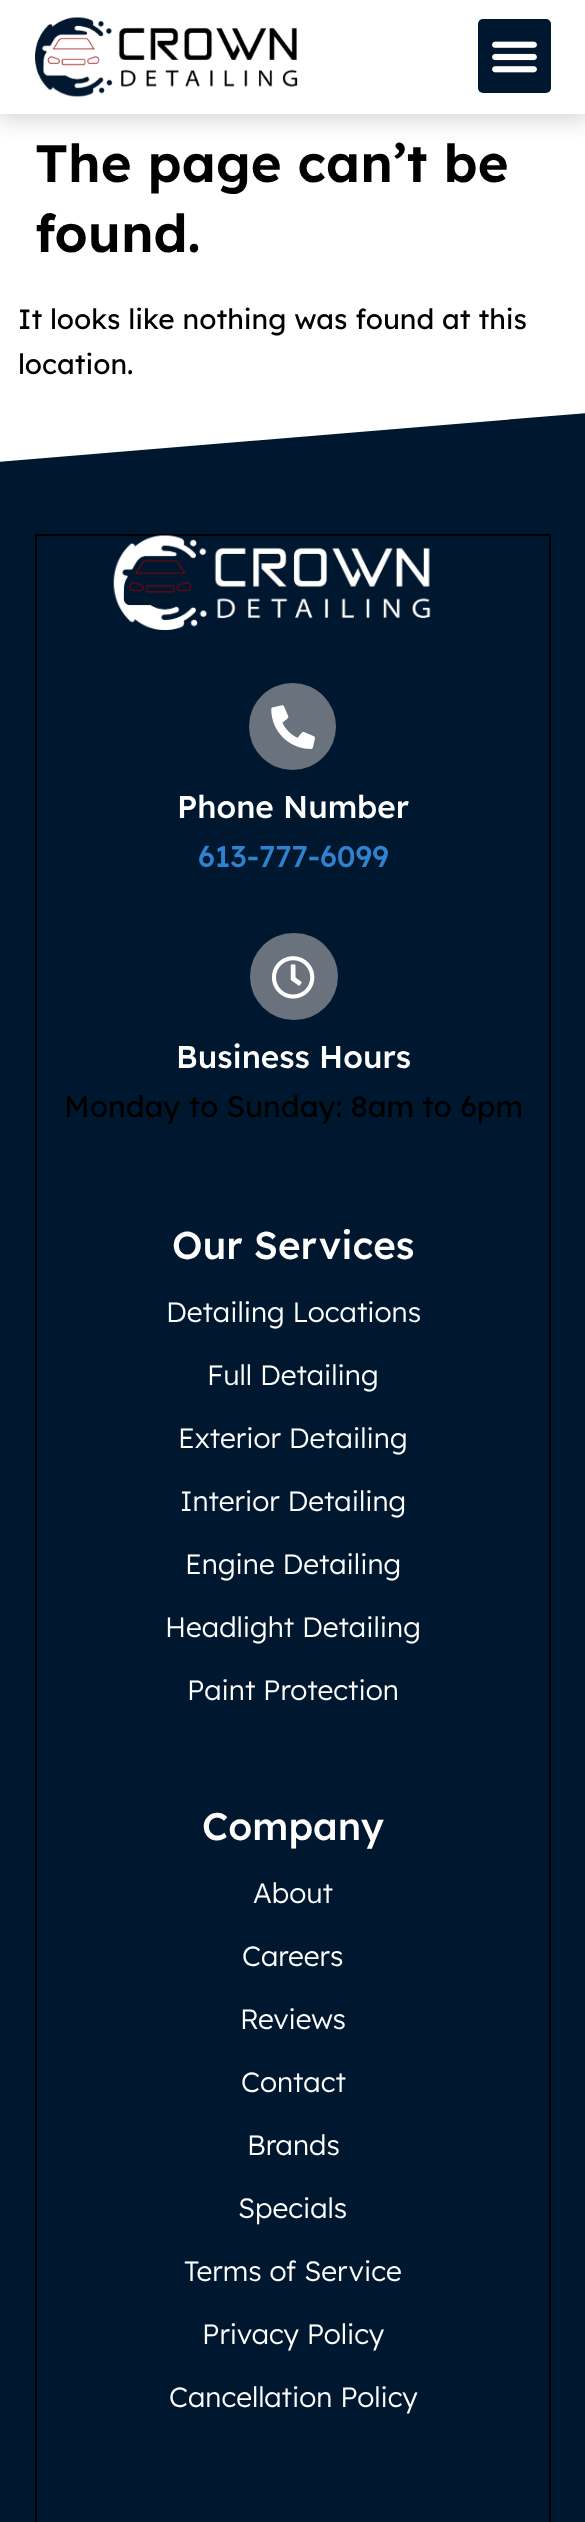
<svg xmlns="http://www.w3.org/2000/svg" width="585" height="2522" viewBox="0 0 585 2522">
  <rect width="100%" height="100%" fill="#fff"/>
  <path d="M-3 -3h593v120H-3z" fill="#00000033" filter="blur(13px)"/>
  <path d="M0 0h585v114H0z" fill="#fff"/>
  <image x="35" y="17" width="263" height="80" href="img/1.png"/>
  <rect x="478" y="19" width="73" height="74" rx="5" fill="#00182f"/>
  <image x="492" y="41" width="45" height="32" href="img/2.png"/>
  <path d="M0 413h585v2109H0z" fill="#00182f"/>
  <path d="M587 413V410H-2V462Z" fill="#fff"/>
  <path d="M36 535h514v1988H36z" fill="none" stroke="#000" stroke-width="2"/>
  <image x="113" y="535" width="318" height="95" href="img/3.png"/>
  <circle cx="292.5" cy="726.5" r="43.5" fill="#69727d"/>
  <image x="271" y="705" width="44" height="44" href="img/4.png"/>
  <rect x="250" y="933" width="88" height="87" rx="43.5" fill="#69727d"/>
  <image x="271" y="956" width="44" height="43" href="img/5.png"/>
  <g font-family="Lexend" font-size="52.5" font-weight="600" fill="#000">
    <text x="35" y="182">The page can’t be</text>
    <text x="35" y="252">found.</text>
  </g>
  <g font-family="Lexend" font-size="28" fill="#000">
    <text x="18" y="329">It looks like nothing was found at this</text>
    <text x="18" y="374">location.</text>
  </g>
  <text x="177" y="818" font-family="Lexend" font-size="31.5" font-weight="500" fill="#fff">Phone Number</text>
  <text x="198" y="867" font-family="Lexend" font-size="29.75" font-weight="500" fill="#3182ce">613-777-6099</text>
  <text x="176" y="1068" font-family="Lexend" font-size="31.5" font-weight="500" fill="#fff">Business Hours</text>
  <text x="64" y="1117" font-family="Lexend" font-size="29.75" fill="#000">Monday to Sunday: 8am to 6pm</text>
  <text x="172" y="1259" font-family="Lexend" font-size="38.5" font-weight="500" fill="#fff">Our Services</text>
  <g font-family="Lexend" font-size="28" font-weight="300" fill="#fff">
    <text x="166" y="1322">Detailing Locations</text>
    <text x="207" y="1385">Full Detailing</text>
    <text x="178" y="1448">Exterior Detailing</text>
    <text x="180" y="1511">Interior Detailing</text>
    <text x="185" y="1574">Engine Detailing</text>
    <text x="165" y="1637">Headlight Detailing</text>
    <text x="187" y="1700">Paint Protection</text>
  </g>
  <text x="202" y="1840" font-family="Lexend" font-size="38.5" font-weight="500" fill="#fff">Company</text>
  <g font-family="Lexend" font-size="28" font-weight="300" fill="#fff">
    <text x="253" y="1903">About</text>
    <text x="242" y="1966">Careers</text>
    <text x="240" y="2029">Reviews</text>
    <text x="241" y="2092">Contact</text>
    <text x="247" y="2155">Brands</text>
    <text x="238" y="2218">Specials</text>
    <text x="184" y="2281">Terms of Service</text>
    <text x="202" y="2344">Privacy Policy</text>
    <text x="169" y="2407">Cancellation Policy</text>
  </g>
</svg>
